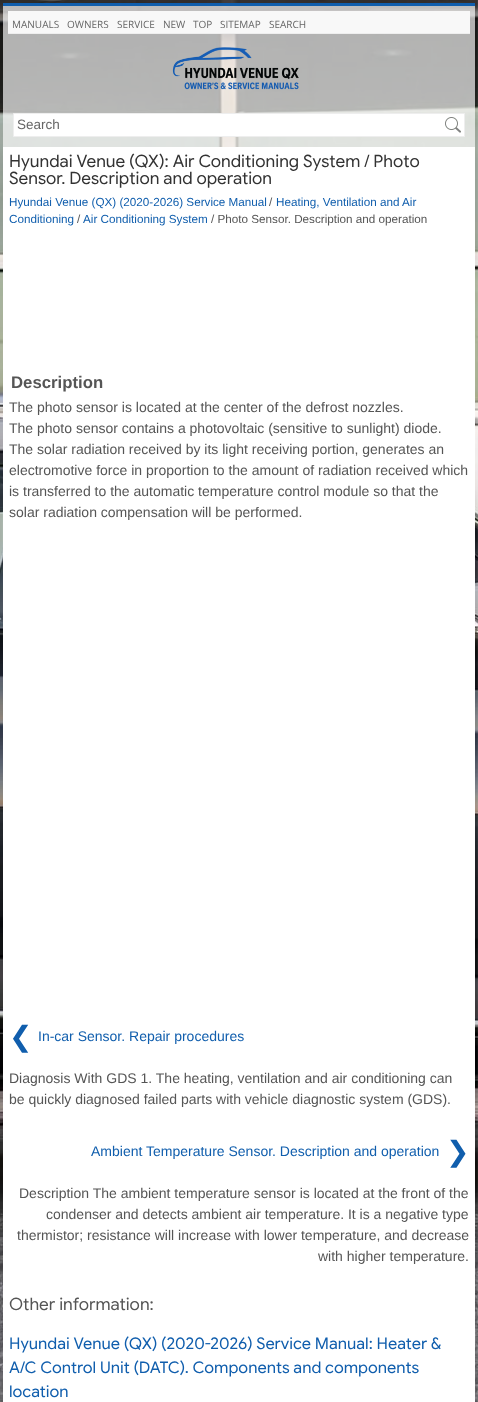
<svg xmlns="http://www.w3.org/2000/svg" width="478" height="1402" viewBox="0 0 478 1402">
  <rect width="100%" height="100%" fill="#fff"/>
  <image x="0" y="0" width="478" height="1402" href="img/1.png"/>
  <path d="M3 6h472v141H3z" fill="#ffffffab"/>
  <path d="M3 3h472v3H3z" fill="#105ead"/>
  <path d="M8 11h462v22H8z" fill="#f8f8f8"/>
  <path d="M8 33h462v1H8z" fill="#eee"/>
  <image x="172" y="47" width="127" height="43" href="img/2.png"/>
  <path d="M13.5 113.5h451v23H13.5z" fill="#fff" stroke="#eee"/>
  <image x="445" y="117" width="16" height="16" href="img/3.png"/>
  <path d="M3 147h472v1255H3z" fill="#fff"/>
  <g font-family="Open Sans" font-size="10" fill="#666">
    <text x="12" y="28">MANUALS</text>
    <text x="67" y="28">OWNERS</text>
    <text x="117" y="28">SERVICE</text>
    <text x="163" y="28">NEW</text>
    <text x="193" y="28">TOP</text>
    <text x="220" y="28">SITEMAP</text>
    <text x="269" y="28">SEARCH</text>
  </g>
  <text x="17" y="129" font-family="Liberation Sans" font-size="13.5" fill="#666">Search</text>
  <g font-family="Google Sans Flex" font-size="17" fill="#333">
    <text x="9" y="167">Hyundai Venue (QX): Air Conditioning System / Photo</text>
    <text x="9" y="184">Sensor. Description and operation</text>
  </g>
  <text x="9" y="206" font-family="Liberation Sans" font-size="11.7" fill="#105ead">Hyundai Venue (QX) (2020-2026) Service Manual</text>
  <text x="269" y="206" font-family="Liberation Sans" font-size="11.7" fill="#555">/</text>
  <g font-family="Liberation Sans" font-size="11.7" fill="#105ead">
    <text x="276" y="206">Heating, Ventilation and Air</text>
    <text x="9" y="223">Conditioning</text>
  </g>
  <text x="77" y="223" font-family="Liberation Sans" font-size="11.7" fill="#555">/</text>
  <text x="83" y="223" font-family="Liberation Sans" font-size="11.7" fill="#105ead">Air Conditioning System</text>
  <text x="211" y="223" font-family="Liberation Sans" font-size="11.7" fill="#555">/ Photo Sensor. Description and operation</text>
  <text x="11" y="388" font-family="Liberation Sans" font-size="16.75" font-weight="bold" fill="#555">Description</text>
  <g font-family="Liberation Sans" font-size="14" fill="#555">
    <text x="9" y="412">The photo sensor is located at the center of the defrost nozzles.</text>
    <text x="9" y="433">The photo sensor contains a photovoltaic (sensitive to sunlight) diode.</text>
    <text x="9" y="454">The solar radiation received by its light receiving portion, generates an</text>
    <text x="9" y="475">electromotive force in proportion to the amount of radiation received which</text>
    <text x="9" y="496">is transferred to the automatic temperature control module so that the</text>
    <text x="9" y="517">solar radiation compensation will be performed.</text>
  </g>
  <text x="9" y="1046" font-family="DejaVu Sans" font-size="28" fill="#105ead">❮</text>
  <text x="38" y="1041" font-family="Liberation Sans" font-size="14" fill="#105ead">In-car Sensor. Repair procedures</text>
  <g font-family="Liberation Sans" font-size="14" fill="#555">
    <text x="9" y="1083">Diagnosis With GDS 1. The heating, ventilation and air conditioning can</text>
    <text x="9" y="1104">be quickly diagnosed failed parts with vehicle diagnostic system (GDS).</text>
  </g>
  <text x="91" y="1156" font-family="Liberation Sans" font-size="14" fill="#105ead">Ambient Temperature Sensor. Description and operation</text>
  <text x="446" y="1161" font-family="DejaVu Sans" font-size="28" fill="#105ead">❯</text>
  <g font-family="Liberation Sans" font-size="14" fill="#555">
    <text x="19" y="1198">Description The ambient temperature sensor is located at the front of the</text>
    <text x="46" y="1219">condenser and detects ambient air temperature. It is a negative type</text>
    <text x="17" y="1240">thermistor; resistance will increase with lower temperature, and decrease</text>
    <text x="318" y="1261">with higher temperature.</text>
  </g>
  <text x="9" y="1310" font-family="Google Sans Flex" font-size="17" fill="#555">Other information:</text>
  <g font-family="'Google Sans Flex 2'" font-size="16" fill="#105ead">
    <text x="9" y="1349">Hyundai Venue (QX) (2020-2026) Service Manual: Heater &amp;</text>
    <text x="9" y="1373">A/C Control Unit (DATC). Components and components</text>
    <text x="9" y="1397">location</text>
  </g>
</svg>
